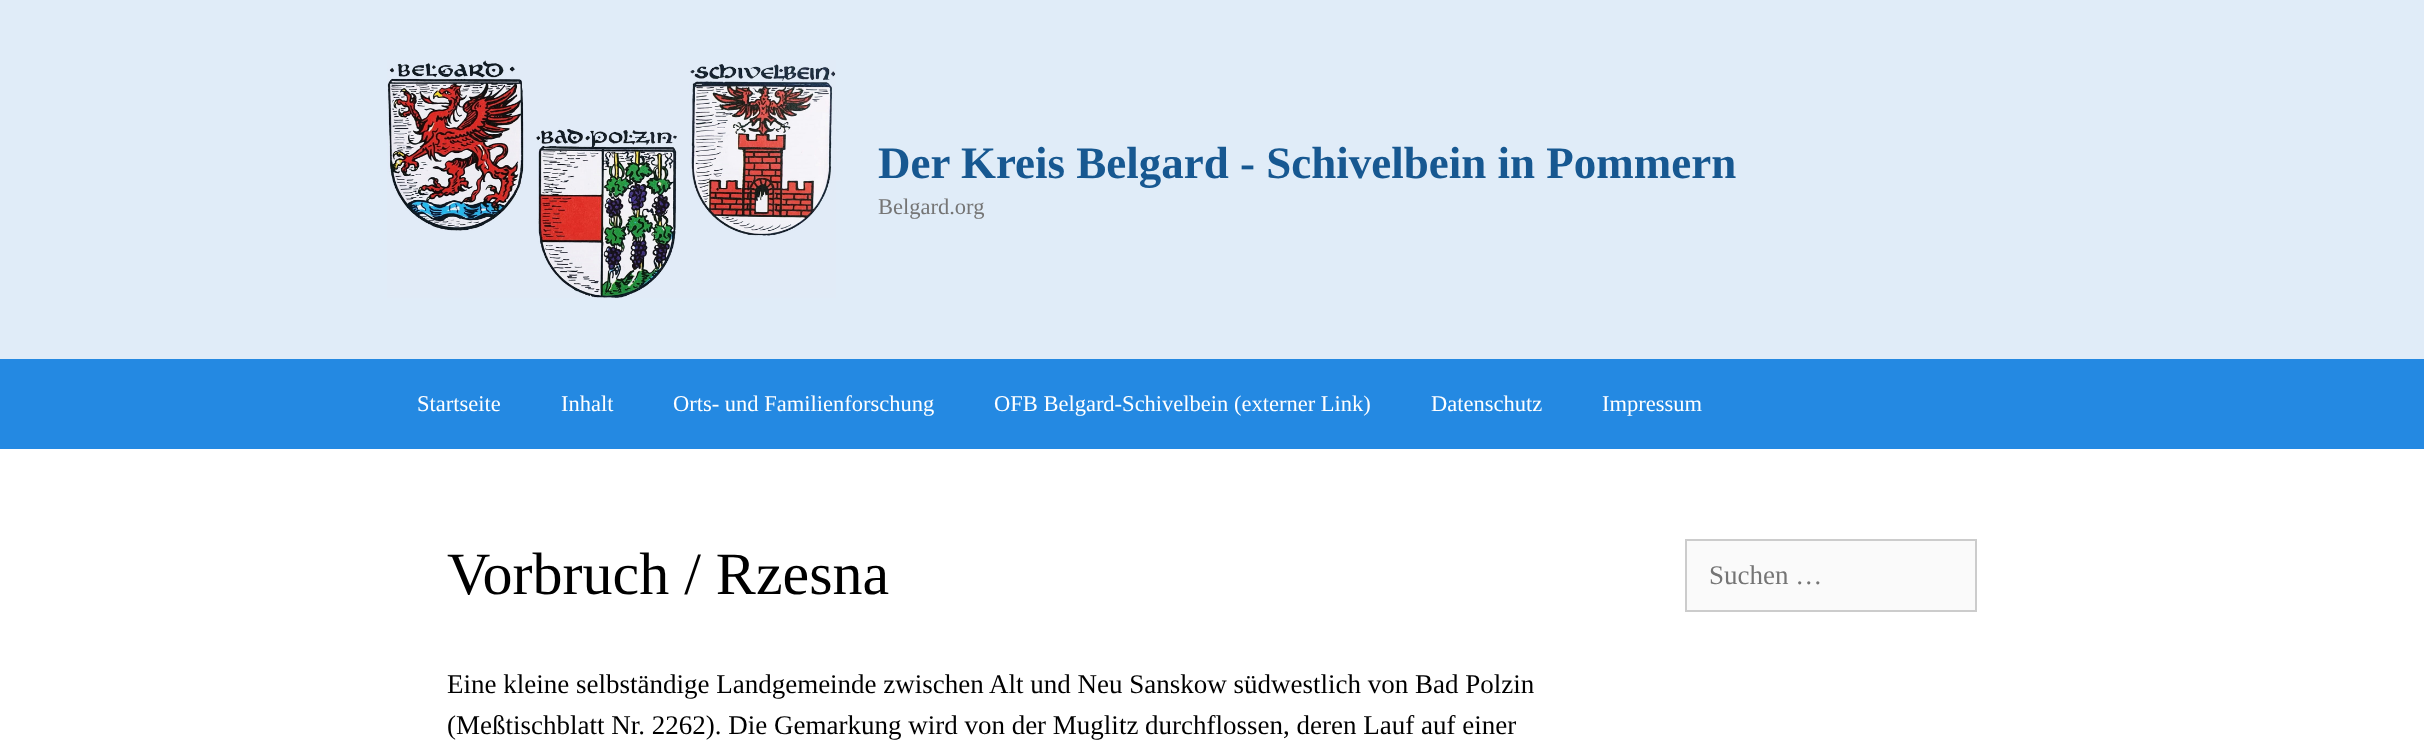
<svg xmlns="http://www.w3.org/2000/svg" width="2424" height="746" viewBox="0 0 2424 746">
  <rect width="100%" height="100%" fill="#fff"/>
  <path d="M0 0h2424v359H0z" fill="#e0ecf8"/>
  <image x="387" y="60" width="449" height="238" href="img/1.png"/>
  <path d="M0 359h2424v90H0z" fill="#2489e2"/>
  <path d="M1686 540h290v71H1686z" fill="#fafafa" stroke="#ccc" stroke-width="2"/>
  <text x="878" y="178" font-family="Liberation Serif" font-size="45" font-weight="bold" fill="#175891">Der Kreis Belgard - Schivelbein in Pommern</text>
  <text x="878" y="214" font-family="Liberation Serif" font-size="22.5" fill="#757575">Belgard.org</text>
  <g font-family="Liberation Serif" font-size="22.5" fill="#fff">
    <text x="417" y="411">Startseite</text>
    <text x="561" y="411">Inhalt</text>
    <text x="673" y="411">Orts- und Familienforschung</text>
    <text x="994" y="411">OFB Belgard-Schivelbein (externer Link)</text>
    <text x="1431" y="411">Datenschutz</text>
    <text x="1602" y="411">Impressum</text>
  </g>
  <text x="447" y="594" font-family="Liberation Serif" font-size="60" fill="#000">Vorbruch / Rzesna</text>
  <g font-family="Liberation Serif" font-size="27" fill="#000">
    <text x="447" y="693">Eine kleine selbständige Landgemeinde zwischen Alt und Neu Sanskow südwestlich von Bad Polzin</text>
    <text x="447" y="734">(Meßtischblatt Nr. 2262). Die Gemarkung wird von der Muglitz durchflossen, deren Lauf auf einer</text>
  </g>
  <text x="1709" y="584" font-family="Liberation Serif" font-size="27" fill="#757575">Suchen …</text>
</svg>
